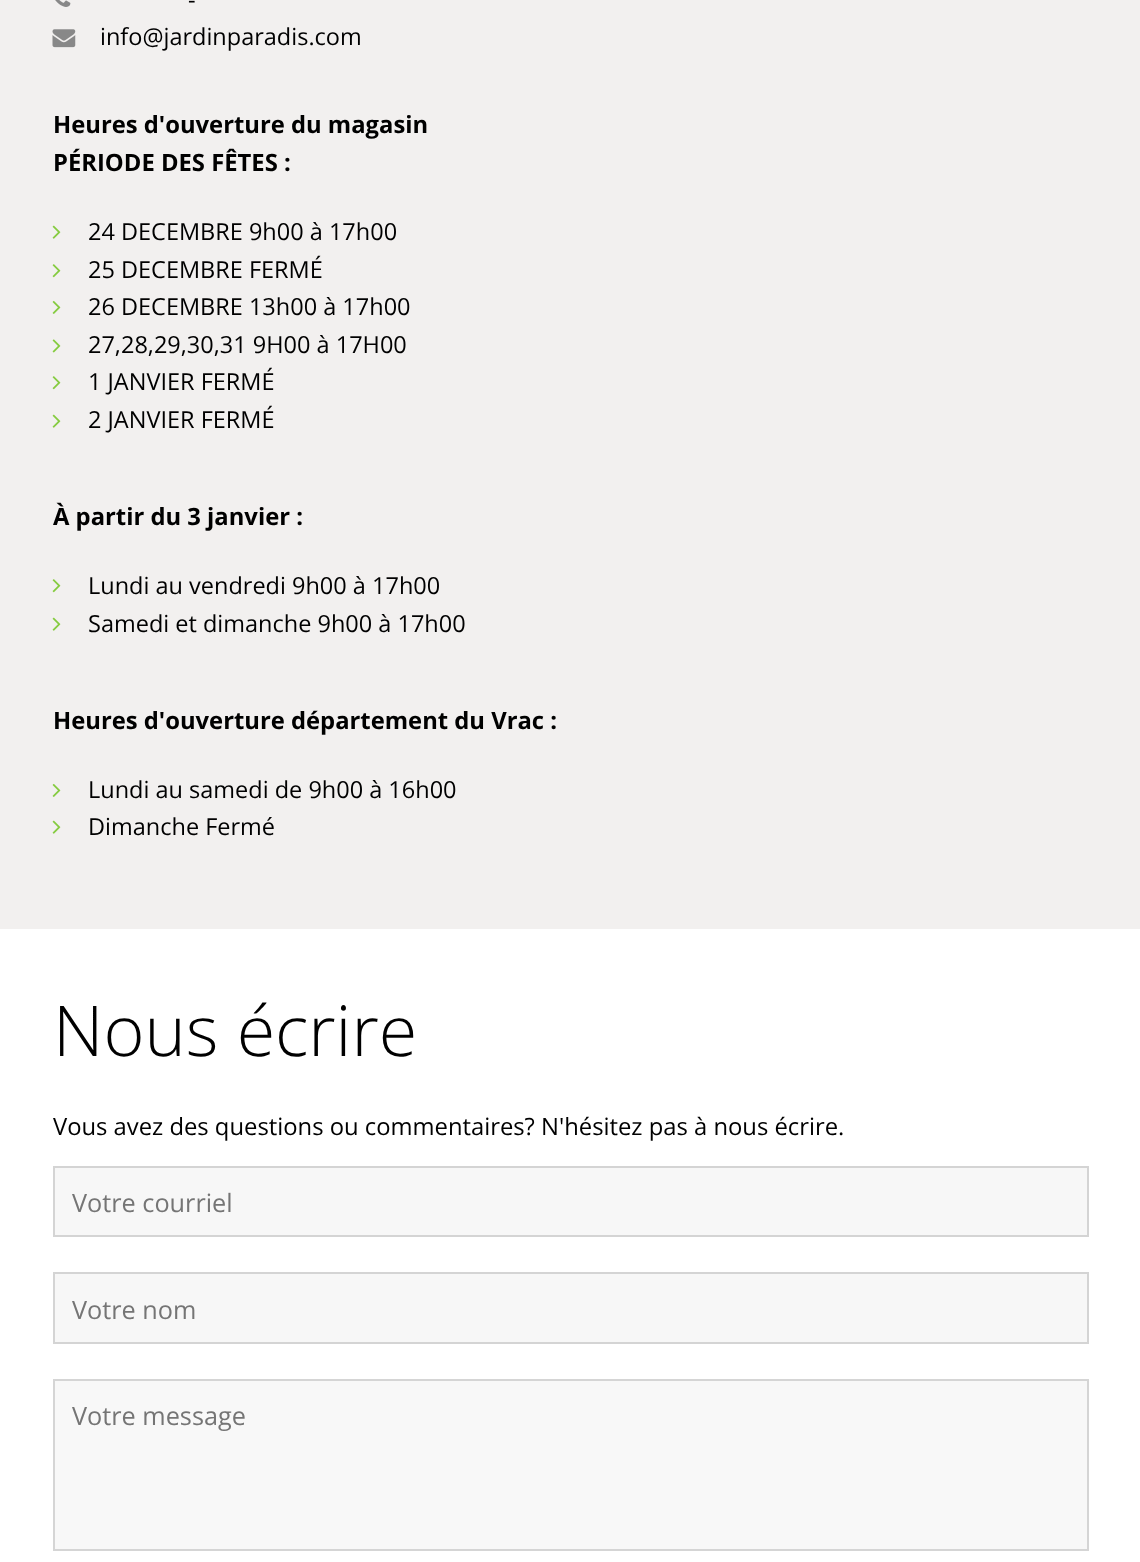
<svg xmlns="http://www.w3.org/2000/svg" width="1140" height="1562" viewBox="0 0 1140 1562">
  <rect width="100%" height="100%" fill="#fff"/>
  <path d="M0 0h1140v929H0z" fill="#f2f0ef"/>
  <image x="55" y="0" width="16" height="7" href="img/1.png"/>
  <image x="52" y="29" width="24" height="19" href="img/2.png"/>
  <image x="52" y="225" width="9" height="14" href="img/3.png"/>
  <image x="52" y="264" width="9" height="14" href="img/4.png"/>
  <image x="52" y="300" width="9" height="14" href="img/5.png"/>
  <image x="52" y="339" width="9" height="14" href="img/6.png"/>
  <image x="52" y="376" width="9" height="14" href="img/4.png"/>
  <image x="52" y="414" width="9" height="14" href="img/3.png"/>
  <image x="52" y="579" width="9" height="14" href="img/4.png"/>
  <image x="52" y="617" width="9" height="14" href="img/3.png"/>
  <image x="52" y="783" width="9" height="14" href="img/5.png"/>
  <image x="52" y="820" width="9" height="14" href="img/3.png"/>
  <path d="M54 1167h1034v69H54z" fill="#f7f7f7" stroke="#d4d4d4" stroke-width="2"/>
  <path d="M54 1273h1034v70H54z" fill="#f7f7f7" stroke="#d4d4d4" stroke-width="2"/>
  <path d="M54 1380h1034v170H54z" fill="#f8f8f8" stroke="#d5d5d5" stroke-width="2"/>
  <g font-family="Open Sans" font-size="23.5" fill="#000">
    <text x="188" y="8">-</text>
    <text x="100" y="45">info@jardinparadis.com</text>
  </g>
  <g font-family="Open Sans" font-size="23.8" font-weight="bold" fill="#000">
    <text x="53" y="133">Heures d'ouverture du magasin</text>
    <text x="53" y="171">PÉRIODE DES FÊTES :</text>
  </g>
  <g font-family="Open Sans" font-size="23.5" fill="#000">
    <text x="88" y="240">24 DECEMBRE 9h00 à 17h00</text>
    <text x="88" y="278">25 DECEMBRE FERMÉ</text>
    <text x="88" y="315">26 DECEMBRE 13h00 à 17h00</text>
    <text x="88" y="353">27,28,29,30,31 9H00 à 17H00</text>
    <text x="88" y="390">1 JANVIER FERMÉ</text>
    <text x="88" y="428">2 JANVIER FERMÉ</text>
  </g>
  <text x="53" y="525" font-family="Open Sans" font-size="23.8" font-weight="bold" fill="#000">À partir du 3 janvier :</text>
  <g font-family="Open Sans" font-size="23.5" fill="#000">
    <text x="88" y="594">Lundi au vendredi 9h00 à 17h00</text>
    <text x="88" y="632">Samedi et dimanche 9h00 à 17h00</text>
  </g>
  <text x="53" y="729" font-family="Open Sans" font-size="23.8" font-weight="bold" fill="#000">Heures d'ouverture département du Vrac :</text>
  <g font-family="Open Sans" font-size="23.5" fill="#000">
    <text x="88" y="798">Lundi au samedi de 9h00 à 16h00</text>
    <text x="88" y="835">Dimanche Fermé</text>
  </g>
  <text x="53" y="1056" font-family="Open Sans" font-size="70" font-weight="300" fill="#000">Nous écrire</text>
  <text x="53" y="1135" font-family="Open Sans" font-size="23.8" fill="#000">Vous avez des questions ou commentaires? N'hésitez pas à nous écrire.</text>
  <g font-family="Open Sans" font-size="25.25" fill="#757575">
    <text x="72" y="1212">Votre courriel</text>
    <text x="72" y="1319">Votre nom</text>
    <text x="72" y="1425">Votre message</text>
  </g>
</svg>
